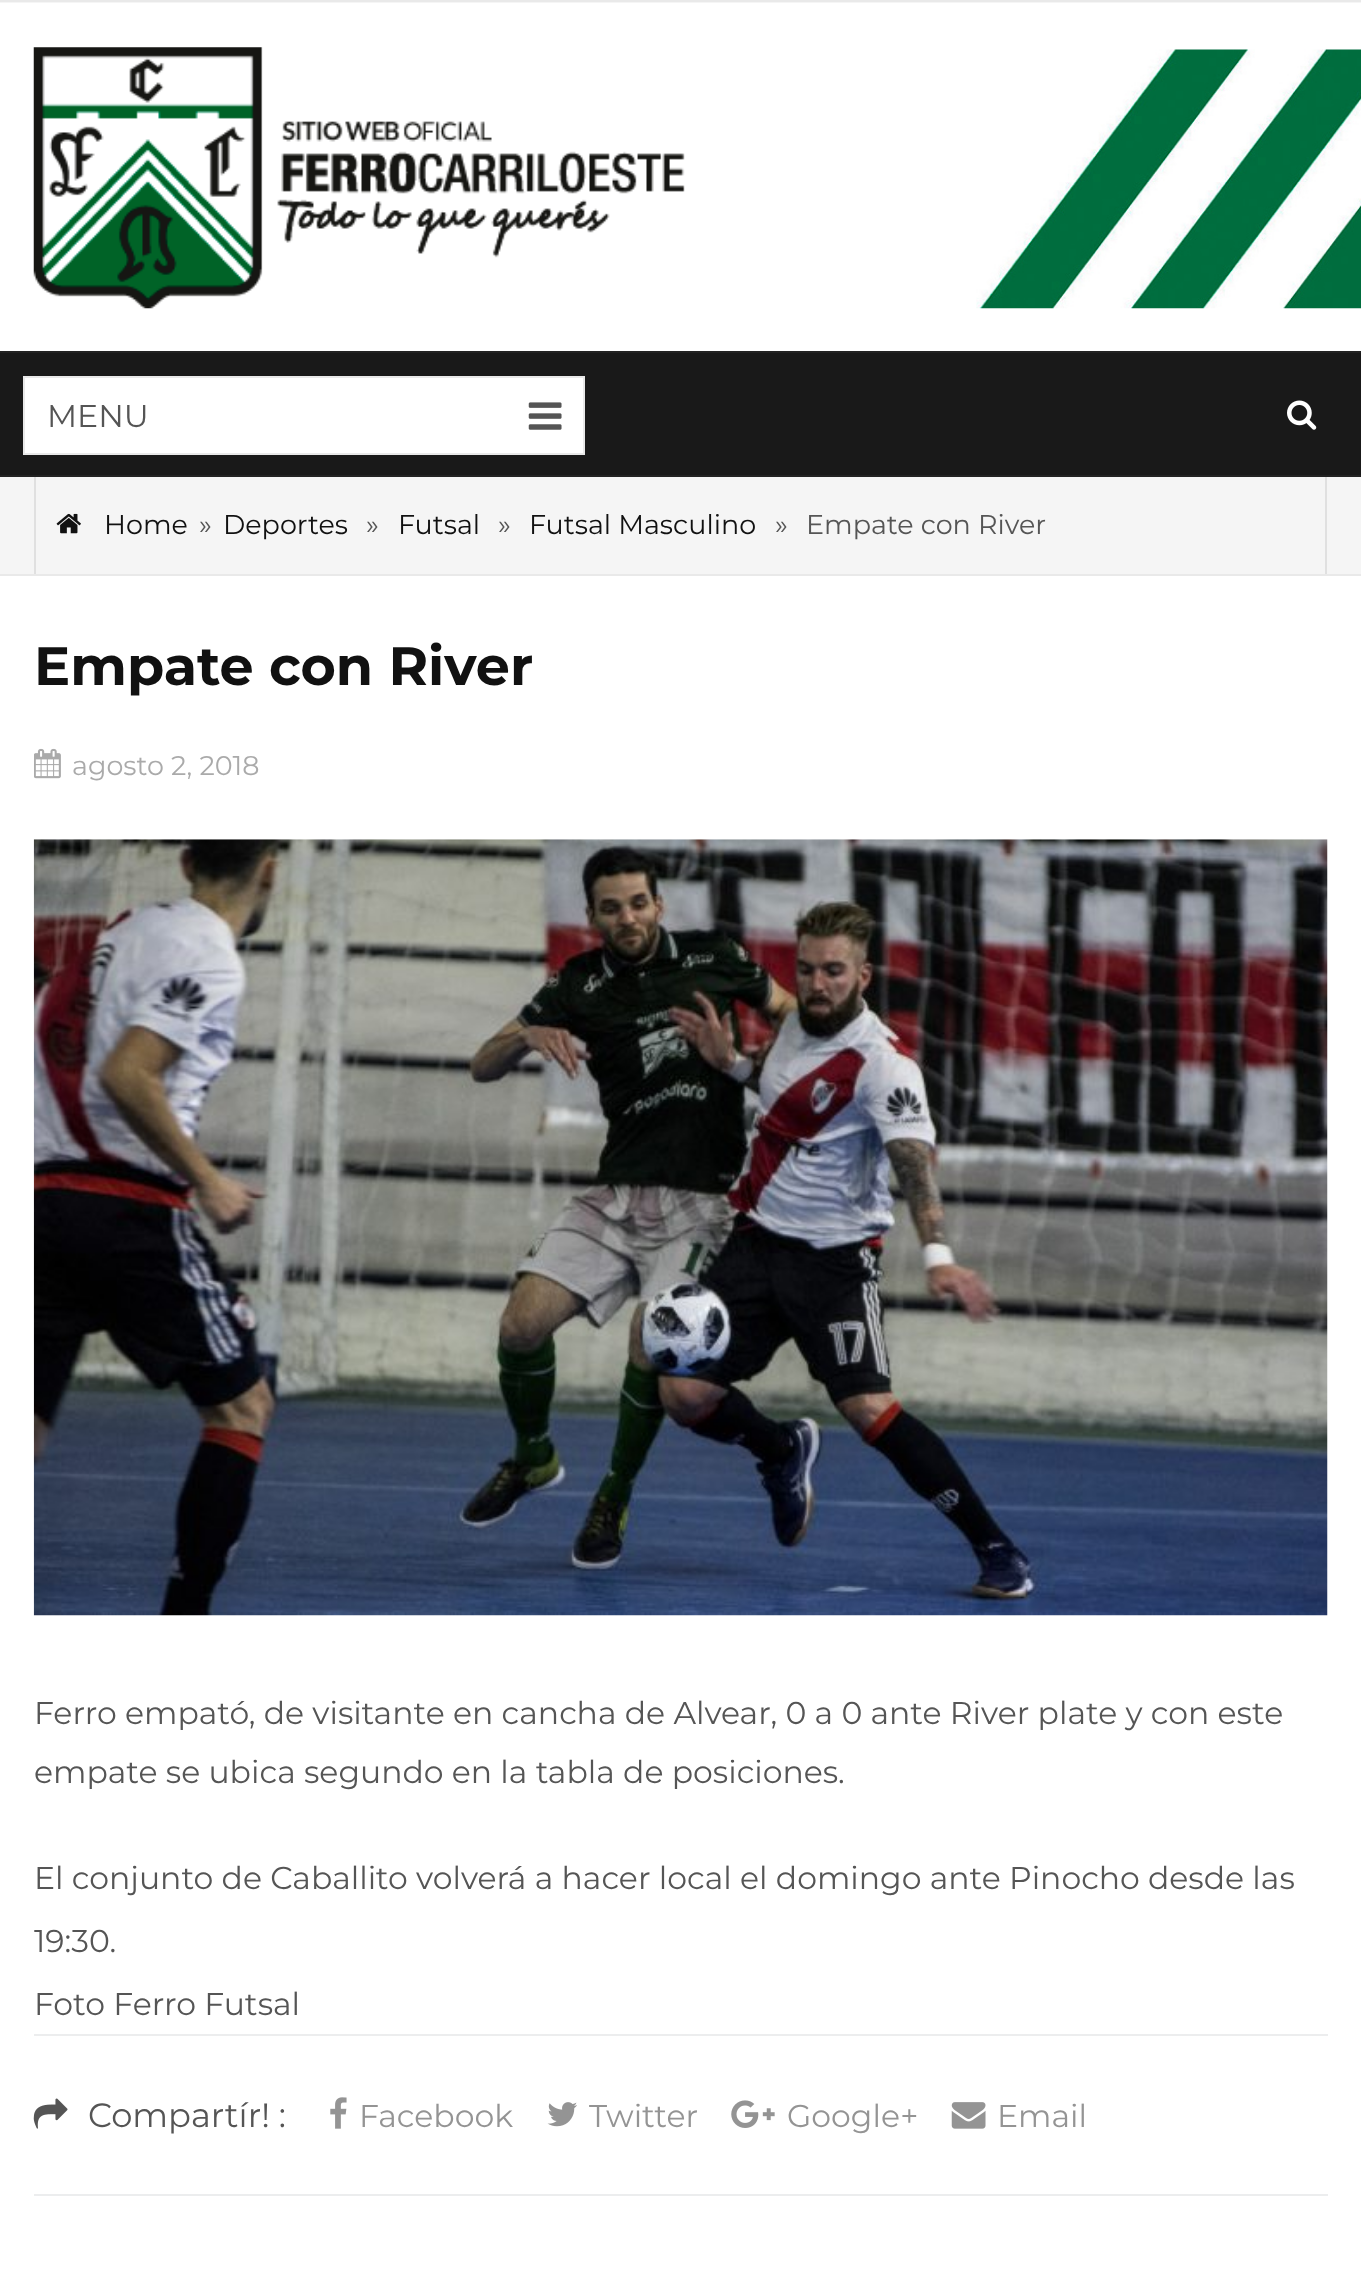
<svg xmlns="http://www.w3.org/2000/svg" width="1361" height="2281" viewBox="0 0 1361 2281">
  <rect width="100%" height="100%" fill="#fff"/>
  <path d="M0 2h1361v1H0z" fill="#f5f5f5"/>
  <path d="M0 0h1361v2H0z" fill="#e9e9e9"/>
  <image x="976" y="49" width="385" height="260" href="img/1.png"/>
  <image x="33" y="47" width="652" height="262" href="img/2.png"/>
  <path d="M0 353h1361v122H0z" fill="#191919"/>
  <path d="M0 351h1361v2H0z" fill="#222"/>
  <path d="M0 477h1361v97H0z" fill="#f5f5f5"/>
  <path d="M1325 475h2v99H1325z" fill="#e0e0e0"/>
  <path d="M34 475h2v99H34z" fill="#e0e0e0"/>
  <path d="M0 475h1361v2H0z" fill="#222"/>
  <path d="M24 377h560v77H24z" fill="#fff" stroke="#e9e9e9" stroke-width="2"/>
  <image x="528" y="402" width="34" height="28" href="img/3.png"/>
  <image x="1287" y="400" width="30" height="30" href="img/4.png"/>
  <path d="M0 574h1361v2H0z" fill="#e9e9e9"/>
  <image x="56" y="513" width="25" height="21" href="img/5.png"/>
  <image x="34" y="748" width="27" height="31" href="img/6.png"/>
  <image x="33" y="839" width="1295" height="777" href="img/7.png"/>
  <path d="M34 2034h1294v2H34z" fill="#ecedee"/>
  <path d="M34 2194h1294v2H34z" fill="#ecedee"/>
  <image x="33" y="2098" width="35" height="31" href="img/8.png"/>
  <image x="330" y="2097" width="17" height="32" href="img/9.png"/>
  <image x="547" y="2102" width="30" height="25" href="img/10.png"/>
  <image x="731" y="2100" width="44" height="28" href="img/11.png"/>
  <image x="951" y="2102" width="35" height="27" href="img/12.png"/>
  <text x="47" y="427" font-family="Montserrat" font-size="31.5" fill="#555">MENU</text>
  <text x="104" y="534" font-family="Montserrat" font-size="27" fill="#111">Home</text>
  <text x="199" y="534" font-family="Montserrat" font-size="27" fill="#555">»</text>
  <text x="223" y="534" font-family="Montserrat" font-size="27" fill="#111">Deportes</text>
  <text x="366" y="534" font-family="Montserrat" font-size="27" fill="#555">»</text>
  <text x="398" y="534" font-family="Montserrat" font-size="27" fill="#111">Futsal</text>
  <text x="498" y="534" font-family="Montserrat" font-size="27" fill="#555">»</text>
  <text x="529" y="534" font-family="Montserrat" font-size="27" fill="#111">Futsal Masculino</text>
  <g font-family="Montserrat" font-size="27" fill="#555">
    <text x="775" y="534">»</text>
    <text x="806" y="534">Empate con River</text>
  </g>
  <text x="34" y="685" font-family="Montserrat" font-size="54" font-weight="bold" fill="#111">Empate con River</text>
  <text x="72" y="775" font-family="Montserrat" font-size="27" fill="#aaa">agosto 2, 2018</text>
  <g font-family="Montserrat" font-size="31.5" fill="#555">
    <text x="34" y="1724">Ferro empató, de visitante en cancha de Alvear, 0 a 0 ante River plate y con este</text>
    <text x="34" y="1783">empate se ubica segundo en la tabla de posiciones.</text>
    <text x="34" y="1889">El conjunto de Caballito volverá a hacer local el domingo ante Pinocho desde las</text>
    <text x="34" y="1952">19:30.</text>
    <text x="34" y="2015">Foto Ferro Futsal</text>
  </g>
  <text x="88" y="2127" font-family="Montserrat" font-size="33.75" fill="#555">Compartír! :</text>
  <g font-family="Montserrat" font-size="31.5" fill="#949494">
    <text x="359" y="2127">Facebook</text>
    <text x="589" y="2127">Twitter</text>
    <text x="787" y="2127">Google+</text>
    <text x="997" y="2127">Email</text>
  </g>
</svg>
